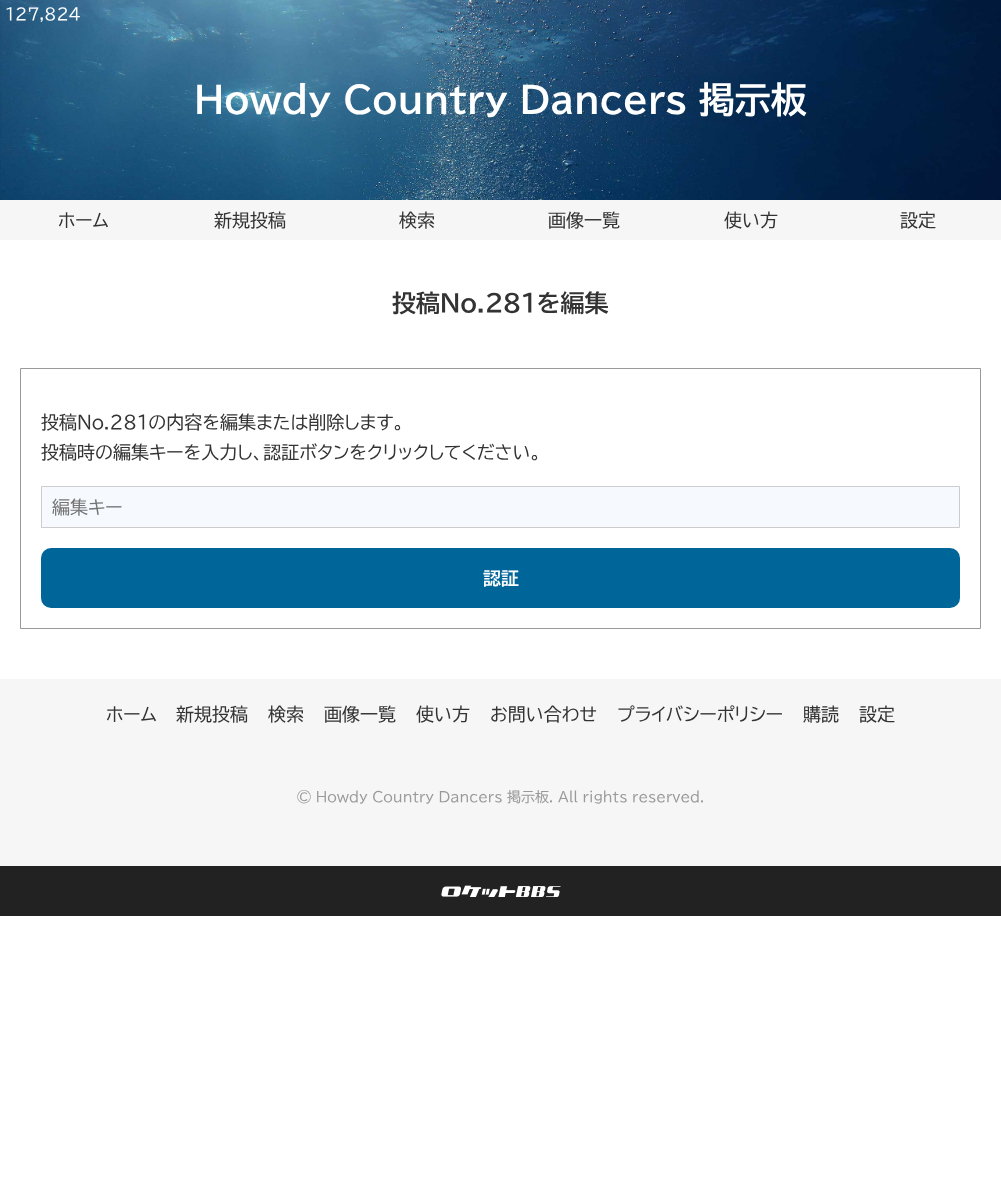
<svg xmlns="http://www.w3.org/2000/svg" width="1001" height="1181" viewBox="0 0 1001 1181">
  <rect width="100%" height="100%" fill="#fff"/>
  <image x="0" y="0" width="1001" height="200" href="img/1.png"/>
  <path d="M0 200h1001v40H0z" fill="#f6f6f6"/>
  <path d="M20.5 368.5h960v260H20.5z" fill="none" stroke="#999"/>
  <path d="M41.5 486.5h918v41H41.5z" fill="#f6faff" stroke="#ccc"/>
  <rect x="41" y="548" width="919" height="60" rx="10" fill="#069"/>
  <path d="M0 679h1001v187H0z" fill="#f6f6f6"/>
  <path d="M0 866h1001v50H0z" fill="#222"/>
  <image x="441" y="885" width="120" height="12" href="img/2.png"/>
  <text x="5" y="20" font-family="BIZ UDPGothic" font-size="16" fill="#fff">127,824</text>
  <text x="194" y="113" font-family="BIZ UDPGothic" font-size="36" font-weight="bold" fill="#fff">Howdy Country Dancers 掲示板</text>
  <g font-family="BIZ UDPGothic" font-size="18" fill="#333">
    <text x="58" y="227">ホーム</text>
    <text x="214" y="227">新規投稿</text>
    <text x="399" y="227">検索</text>
    <text x="548" y="227">画像一覧</text>
    <text x="724" y="227">使い方</text>
    <text x="900" y="227">設定</text>
  </g>
  <text x="392" y="312" font-family="BIZ UDPGothic" font-size="24" font-weight="bold" fill="#333">投稿No.281を編集</text>
  <g font-family="BIZ UDPGothic" font-size="18" fill="#333">
    <text x="41" y="429">投稿No.281の内容を編集または削除します。</text>
    <text x="41" y="459">投稿時の編集キーを入力し、認証ボタンをクリックしてください。</text>
  </g>
  <text x="52" y="514" font-family="BIZ UDPGothic" font-size="18" fill="#757575">編集キー</text>
  <text x="483" y="585" font-family="BIZ UDPGothic" font-size="18" font-weight="bold" fill="#fff">認証</text>
  <g font-family="BIZ UDPGothic" font-size="18" fill="#333">
    <text x="106" y="721">ホーム</text>
    <text x="176" y="721">新規投稿</text>
    <text x="268" y="721">検索</text>
    <text x="324" y="721">画像一覧</text>
    <text x="416" y="721">使い方</text>
    <text x="490" y="721">お問い合わせ</text>
    <text x="617" y="721">プライバシーポリシー</text>
    <text x="803" y="721">購読</text>
    <text x="859" y="721">設定</text>
  </g>
  <text x="297" y="802" font-family="BIZ UDPGothic" font-size="14" fill="#999">© Howdy Country Dancers 掲示板. All rights reserved.</text>
</svg>
